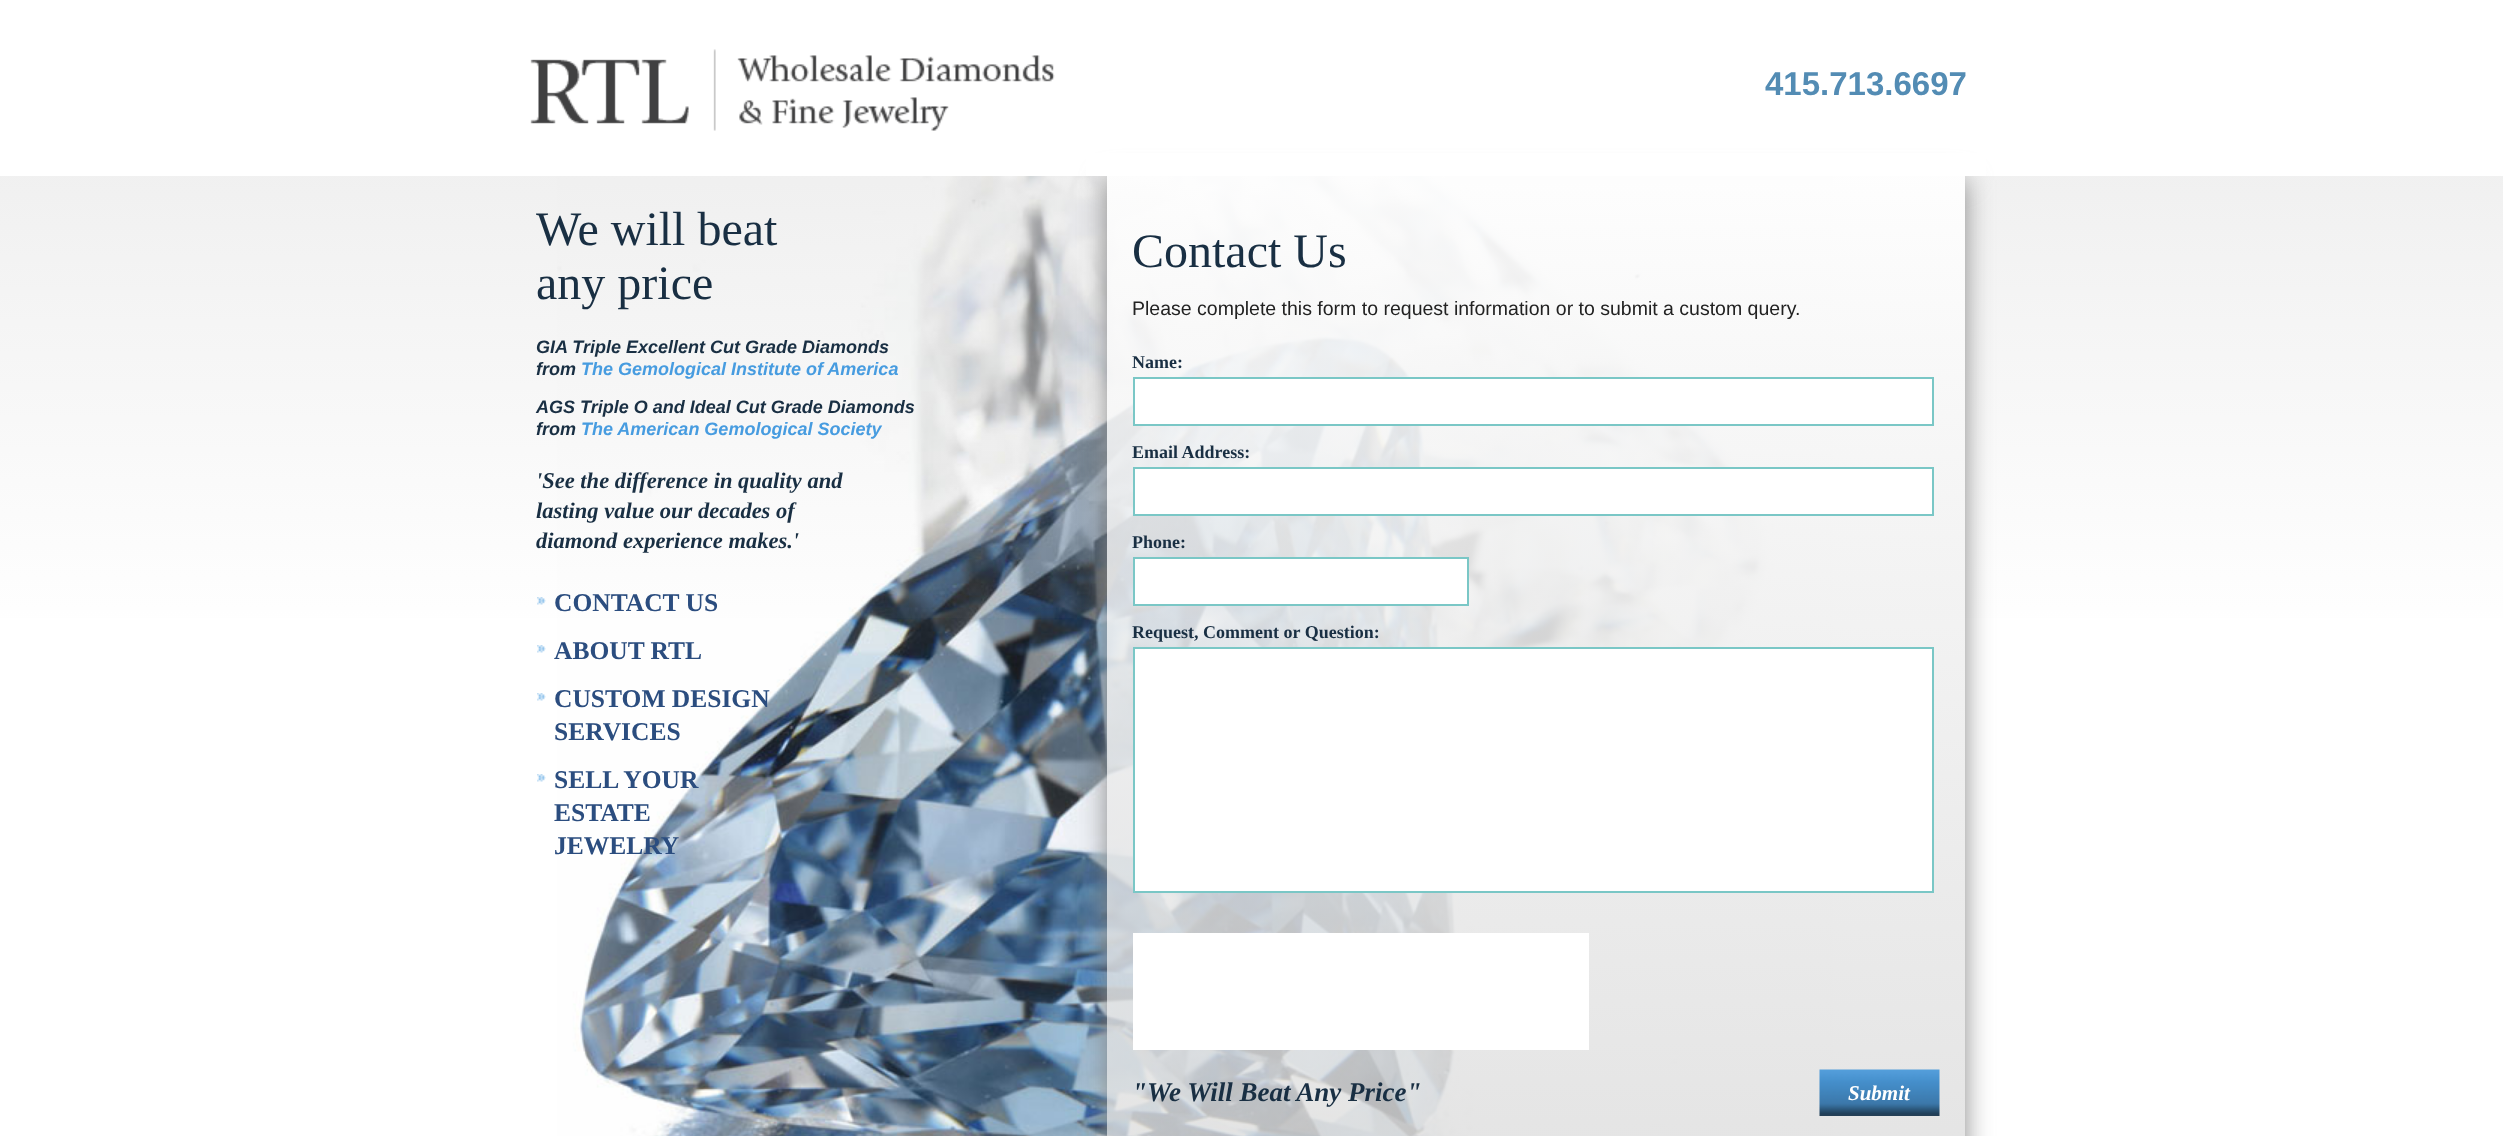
<svg xmlns="http://www.w3.org/2000/svg" width="2503" height="1136" viewBox="0 0 2503 1136">
  <defs>
    <linearGradient id="g1" gradientUnits="userSpaceOnUse" x1="1252" y1="175" x2="1252" y2="641"><stop offset="0" stop-color="#ddd" stop-opacity="0.43"/><stop offset="1" stop-color="#ddd" stop-opacity="0"/></linearGradient>
    <clipPath id="clip1"><path d="M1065 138H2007V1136H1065ZM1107 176H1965V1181H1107Z" clip-rule="evenodd"/></clipPath>
    <linearGradient id="g2" gradientUnits="userSpaceOnUse" x1="1536" y1="175" x2="1536" y2="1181"><stop offset="0" stop-color="#fff" stop-opacity="0.9"/><stop offset="1" stop-color="#ddd" stop-opacity="0.8"/></linearGradient>
  </defs>
  <rect width="100%" height="100%" fill="#fff"/>
  <image x="557" y="176" width="1276" height="960" href="img/2.png"/>
  <path d="M0 176h2503v442H0z" fill="url(#g1)"/>
  <g clip-path="url(#clip1)">
    <path d="M1107 180h858v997H1107z" fill="#888" filter="blur(13.5px)"/>
  </g>
  <path d="M1086 153h900v23H1086z" fill="#fff"/>
  <image x="530" y="49" width="525" height="82" href="img/1.png"/>
  <image x="537" y="597" width="9" height="8" href="img/3.png"/>
  <image x="537" y="645" width="9" height="8" href="img/4.png"/>
  <image x="537" y="693" width="9" height="8" href="img/4.png"/>
  <image x="537" y="774" width="9" height="8" href="img/4.png"/>
  <path d="M1107 176h858v960H1107z" fill="url(#g2)"/>
  <path d="M1134 378h799v47H1134z" fill="#fff" stroke="#7ac7c6" stroke-width="2"/>
  <path d="M1134 468h799v47H1134z" fill="#fff" stroke="#7ac7c6" stroke-width="2"/>
  <path d="M1134 558h334v47H1134z" fill="#fff" stroke="#7ac7c6" stroke-width="2"/>
  <path d="M1134 648h799v244H1134z" fill="#fff" stroke="#7ac7c6" stroke-width="2"/>
  <path d="M1133 933h456v117H1133z" fill="#fff"/>
  <image x="1819" y="1069" width="121" height="47" href="img/5.png"/>
  <text x="1765" y="95" font-family="Liberation Sans" font-size="33" font-weight="bold" fill="#538cb4">415.713.6697</text>
  <g font-family="Liberation Serif" font-size="48" fill="#192f43">
    <text x="536" y="245">We will beat</text>
    <text x="536" y="299">any price</text>
  </g>
  <g font-family="Liberation Sans" font-size="18" font-weight="bold" font-style="italic" fill="#192f43">
    <text x="536" y="353">GIA Triple Excellent Cut Grade Diamonds</text>
    <text x="536" y="375">from</text>
  </g>
  <text x="581" y="375" font-family="Liberation Sans" font-size="18" font-weight="bold" font-style="italic" fill="#479ce0">The Gemological Institute of America</text>
  <g font-family="Liberation Sans" font-size="18" font-weight="bold" font-style="italic" fill="#192f43">
    <text x="536" y="413">AGS Triple O and Ideal Cut Grade Diamonds</text>
    <text x="536" y="435">from</text>
  </g>
  <text x="581" y="435" font-family="Liberation Sans" font-size="18" font-weight="bold" font-style="italic" fill="#479ce0">The American Gemological Society</text>
  <g font-family="Liberation Serif" font-size="22.5" font-weight="bold" font-style="italic" fill="#192f43">
    <text x="536" y="488">'See the difference in quality and</text>
    <text x="536" y="518">lasting value our decades of</text>
    <text x="536" y="548">diamond experience makes.'</text>
  </g>
  <g font-family="Liberation Serif" font-size="25.5" font-weight="bold" fill="#2b4d7f">
    <text x="554" y="611">CONTACT US</text>
    <text x="554" y="659">ABOUT RTL</text>
    <text x="554" y="707">CUSTOM DESIGN</text>
    <text x="554" y="740">SERVICES</text>
    <text x="554" y="788">SELL YOUR</text>
    <text x="554" y="821">ESTATE</text>
    <text x="554" y="854">JEWELRY</text>
  </g>
  <text x="1132" y="267" font-family="Liberation Serif" font-size="48" fill="#192f43">Contact Us</text>
  <text x="1132" y="315" font-family="Liberation Sans" font-size="19.5" fill="#222">Please complete this form to request information or to submit a custom query.</text>
  <g font-family="Liberation Serif" font-size="18" font-weight="bold" fill="#192f43">
    <text x="1132" y="368">Name:</text>
    <text x="1132" y="458">Email Address:</text>
    <text x="1132" y="548">Phone:</text>
    <text x="1132" y="638">Request, Comment or Question:</text>
  </g>
  <text x="1132" y="1101" font-family="Liberation Serif" font-size="27" font-weight="bold" font-style="italic" fill="#192f43">"We Will Beat Any Price"</text>
  <text x="1848" y="1100" font-family="Liberation Serif" font-size="21" font-weight="bold" font-style="italic" fill="#fff">Submit</text>
</svg>
